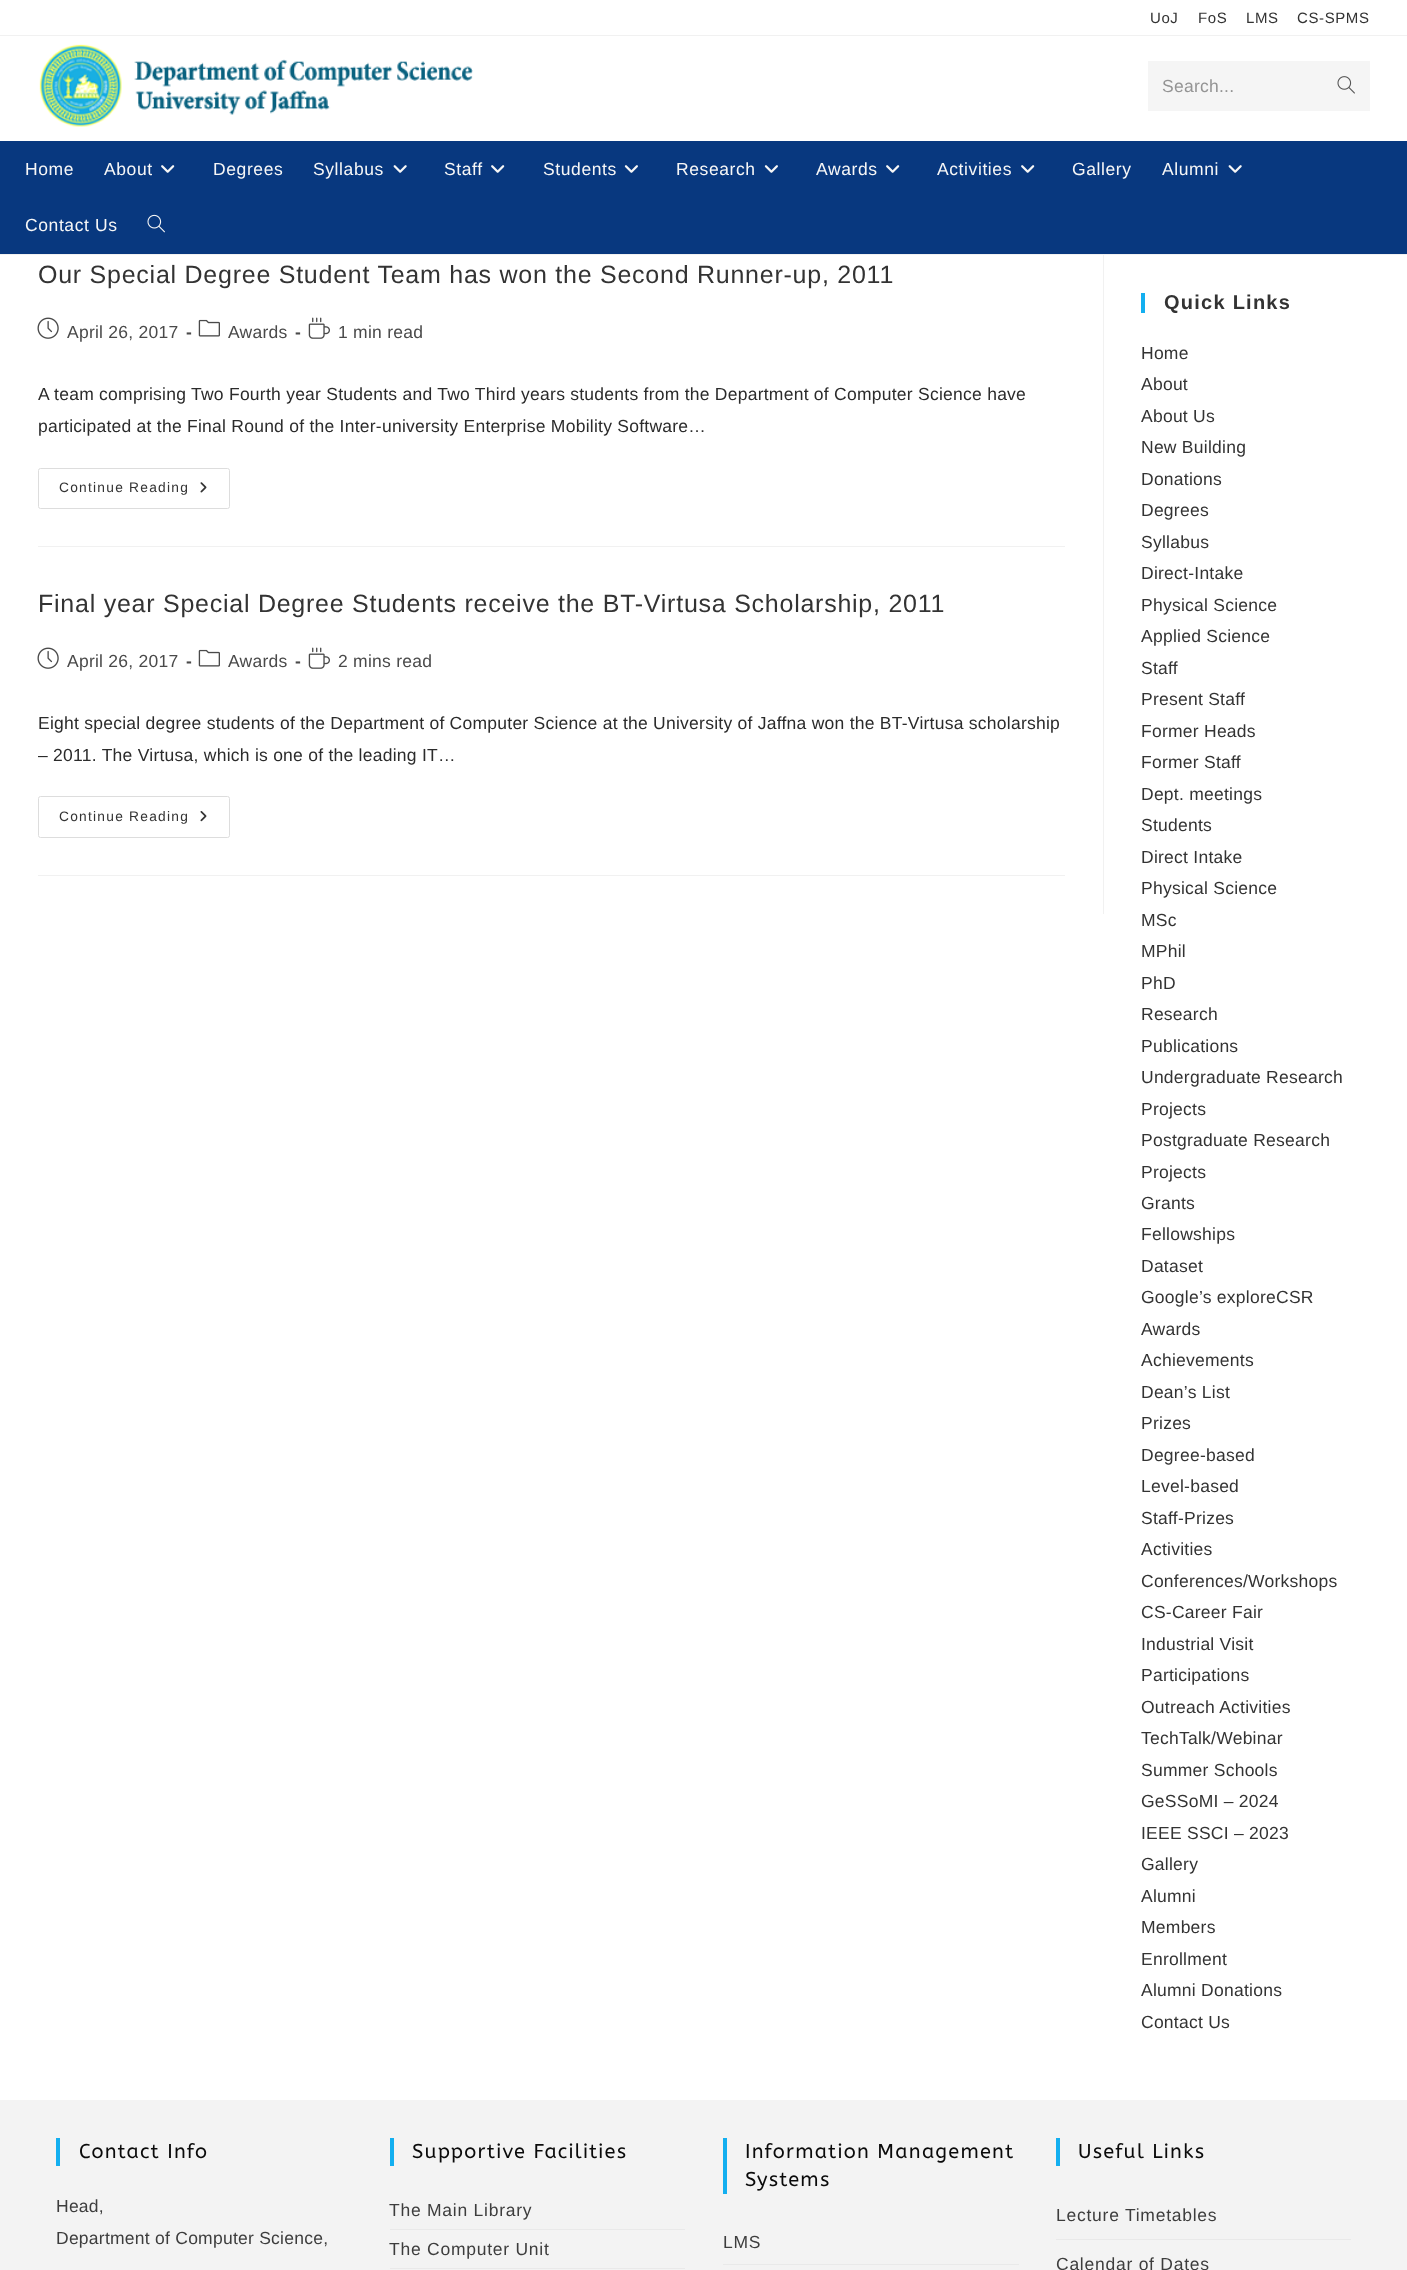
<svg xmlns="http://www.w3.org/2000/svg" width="1407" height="2270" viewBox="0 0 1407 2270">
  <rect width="100%" height="100%" fill="#fff"/>
  <path d="M0 35h1407v1H0z" fill="#f1f1f1"/>
  <path d="M0 254h1407v1H0z" fill="#f1f1f1"/>
  <image x="39" y="44" width="434" height="83" href="img/1.png"/>
  <path d="M1148 61h222v50H1148z" fill="#f5f5f5"/>
  <image x="1337" y="76" width="18" height="18" href="img/2.png"/>
  <path d="M0 141h1407v113H0z" fill="#08387f"/>
  <image x="161" y="165" width="14" height="8" href="img/3.png"/>
  <image x="393" y="165" width="14" height="8" href="img/4.png"/>
  <image x="491" y="165" width="14" height="8" href="img/3.png"/>
  <image x="624" y="165" width="14" height="8" href="img/5.png"/>
  <image x="764" y="165" width="14" height="8" href="img/5.png"/>
  <image x="886" y="165" width="14" height="8" href="img/3.png"/>
  <image x="1021" y="165" width="14" height="8" href="img/3.png"/>
  <image x="1228" y="165" width="14" height="8" href="img/4.png"/>
  <image x="147" y="214" width="18" height="19" href="img/6.png"/>
  <path d="M1103 255h1v659H1103z" fill="#f1f1f1"/>
  <path d="M38 546h1027v1H38z" fill="#f1f1f1"/>
  <image x="37" y="317" width="22" height="22" href="img/7.png"/>
  <image x="198" y="319" width="22" height="18" href="img/8.png"/>
  <image x="308" y="317" width="22" height="22" href="img/9.png"/>
  <rect x="38.5" y="468.5" width="191" height="40" rx="2" fill="none" stroke="#ddd"/>
  <image x="200" y="482" width="7" height="11" href="img/10.png"/>
  <path d="M38 875h1027v1H38z" fill="#f1f1f1"/>
  <image x="37" y="647" width="22" height="22" href="img/7.png"/>
  <image x="198" y="649" width="22" height="18" href="img/8.png"/>
  <image x="308" y="647" width="22" height="22" href="img/9.png"/>
  <rect x="38.5" y="796.5" width="191" height="41" rx="2" fill="none" stroke="#ddd"/>
  <image x="200" y="811" width="7" height="11" href="img/11.png"/>
  <path d="M1141 293h4v20H1141z" fill="#13aff0"/>
  <path d="M0 2100h1407v170H0z" fill="#f3f3f3"/>
  <path d="M56 2138h4v28H56z" fill="#13aff0"/>
  <path d="M390 2138h4v28H390z" fill="#13aff0"/>
  <path d="M390 2229h295v1H390z" fill="#e9e9e9"/>
  <path d="M390 2268h295v1H390z" fill="#e9e9e9"/>
  <path d="M723 2138h4v56H723z" fill="#13aff0"/>
  <path d="M723 2264h296v1H723z" fill="#e9e9e9"/>
  <path d="M1056 2138h4v28H1056z" fill="#13aff0"/>
  <path d="M1056 2239h295v1H1056z" fill="#e9e9e9"/>
  <g font-family="Liberation Sans" font-size="15" letter-spacing="0.6" fill="#333">
    <text x="1150" y="23">UoJ</text>
    <text x="1198" y="23">FoS</text>
    <text x="1246" y="23">LMS</text>
    <text x="1297" y="23">CS-SPMS</text>
  </g>
  <text x="1162" y="92" font-family="Liberation Sans" font-size="17.5" letter-spacing="0.25" fill="#949494">Search...</text>
  <g font-family="Liberation Sans" font-size="17.5" letter-spacing="0.6" fill="#f7f7f7">
    <text x="25" y="175">Home</text>
    <text x="104" y="175">About</text>
    <text x="213" y="175">Degrees</text>
    <text x="313" y="175">Syllabus</text>
    <text x="444" y="175">Staff</text>
    <text x="543" y="175">Students</text>
    <text x="676" y="175">Research</text>
    <text x="816" y="175">Awards</text>
    <text x="937" y="175">Activities</text>
    <text x="1072" y="175">Gallery</text>
    <text x="1162" y="175">Alumni</text>
    <text x="25" y="231">Contact Us</text>
  </g>
  <text x="38" y="283" font-family="Liberation Sans" font-size="25" letter-spacing="0.75" fill="#333">Our Special Degree Student Team has won the Second Runner-up, 2011</text>
  <text x="67" y="338" font-family="Liberation Sans" font-size="17.5" letter-spacing="0.25" fill="#4a4a4a">April 26, 2017</text>
  <text x="186" y="338" font-family="Liberation Sans" font-size="17.5" font-weight="bold" letter-spacing="0.25" fill="#4a4a4a">-</text>
  <text x="228" y="338" font-family="Liberation Sans" font-size="17.5" letter-spacing="0.25" fill="#4a4a4a">Awards</text>
  <text x="295" y="338" font-family="Liberation Sans" font-size="17.5" font-weight="bold" letter-spacing="0.25" fill="#4a4a4a">-</text>
  <text x="338" y="338" font-family="Liberation Sans" font-size="17.5" letter-spacing="0.25" fill="#4a4a4a">1 min read</text>
  <g font-family="Liberation Sans" font-size="17.5" letter-spacing="0.25" fill="#2b2b2b">
    <text x="38" y="400">A team comprising Two Fourth year Students and Two Third years students from the Department of Computer Science have</text>
    <text x="38" y="432">participated at the Final Round of the Inter-university Enterprise Mobility Software…</text>
  </g>
  <text x="59" y="492" font-family="Liberation Sans" font-size="13.75" letter-spacing="1.25" fill="#333">Continue Reading</text>
  <text x="38" y="612" font-family="Liberation Sans" font-size="25" letter-spacing="0.75" fill="#333">Final year Special Degree Students receive the BT-Virtusa Scholarship, 2011</text>
  <text x="67" y="667" font-family="Liberation Sans" font-size="17.5" letter-spacing="0.25" fill="#4a4a4a">April 26, 2017</text>
  <text x="186" y="667" font-family="Liberation Sans" font-size="17.5" font-weight="bold" letter-spacing="0.25" fill="#4a4a4a">-</text>
  <text x="228" y="667" font-family="Liberation Sans" font-size="17.5" letter-spacing="0.25" fill="#4a4a4a">Awards</text>
  <text x="295" y="667" font-family="Liberation Sans" font-size="17.5" font-weight="bold" letter-spacing="0.25" fill="#4a4a4a">-</text>
  <text x="338" y="667" font-family="Liberation Sans" font-size="17.5" letter-spacing="0.25" fill="#4a4a4a">2 mins read</text>
  <g font-family="Liberation Sans" font-size="17.5" letter-spacing="0.25" fill="#2b2b2b">
    <text x="38" y="729">Eight special degree students of the Department of Computer Science at the University of Jaffna won the BT-Virtusa scholarship</text>
    <text x="38" y="761">– 2011. The Virtusa, which is one of the leading IT…</text>
  </g>
  <text x="59" y="821" font-family="Liberation Sans" font-size="13.75" letter-spacing="1.25" fill="#333">Continue Reading</text>
  <text x="1164" y="309" font-family="Liberation Sans" font-size="20" font-weight="bold" letter-spacing="1.25" fill="#333">Quick Links</text>
  <g font-family="Liberation Sans" font-size="17.5" letter-spacing="0.25" fill="#333">
    <text x="1141" y="359">Home</text>
    <text x="1141" y="390">About</text>
    <text x="1141" y="422">About Us</text>
    <text x="1141" y="453">New Building</text>
    <text x="1141" y="485">Donations</text>
    <text x="1141" y="516">Degrees</text>
    <text x="1141" y="548">Syllabus</text>
    <text x="1141" y="579">Direct-Intake</text>
    <text x="1141" y="611">Physical Science</text>
    <text x="1141" y="642">Applied Science</text>
    <text x="1141" y="674">Staff</text>
    <text x="1141" y="705">Present Staff</text>
    <text x="1141" y="737">Former Heads</text>
    <text x="1141" y="768">Former Staff</text>
    <text x="1141" y="800">Dept. meetings</text>
    <text x="1141" y="831">Students</text>
    <text x="1141" y="863">Direct Intake</text>
    <text x="1141" y="894">Physical Science</text>
    <text x="1141" y="926">MSc</text>
    <text x="1141" y="957">MPhil</text>
    <text x="1141" y="989">PhD</text>
    <text x="1141" y="1020">Research</text>
    <text x="1141" y="1052">Publications</text>
    <text x="1141" y="1083">Undergraduate Research</text>
    <text x="1141" y="1115">Projects</text>
    <text x="1141" y="1146">Postgraduate Research</text>
    <text x="1141" y="1178">Projects</text>
    <text x="1141" y="1209">Grants</text>
    <text x="1141" y="1240">Fellowships</text>
    <text x="1141" y="1272">Dataset</text>
    <text x="1141" y="1303">Google’s exploreCSR</text>
    <text x="1141" y="1335">Awards</text>
    <text x="1141" y="1366">Achievements</text>
    <text x="1141" y="1398">Dean’s List</text>
    <text x="1141" y="1429">Prizes</text>
    <text x="1141" y="1461">Degree-based</text>
    <text x="1141" y="1492">Level-based</text>
    <text x="1141" y="1524">Staff-Prizes</text>
    <text x="1141" y="1555">Activities</text>
    <text x="1141" y="1587">Conferences/Workshops</text>
    <text x="1141" y="1618">CS-Career Fair</text>
    <text x="1141" y="1650">Industrial Visit</text>
    <text x="1141" y="1681">Participations</text>
    <text x="1141" y="1713">Outreach Activities</text>
    <text x="1141" y="1744">TechTalk/Webinar</text>
    <text x="1141" y="1776">Summer Schools</text>
    <text x="1141" y="1807">GeSSoMI – 2024</text>
    <text x="1141" y="1839">IEEE SSCI – 2023</text>
    <text x="1141" y="1870">Gallery</text>
    <text x="1141" y="1902">Alumni</text>
    <text x="1141" y="1933">Members</text>
    <text x="1141" y="1965">Enrollment</text>
    <text x="1141" y="1996">Alumni Donations</text>
    <text x="1141" y="2028">Contact Us</text>
  </g>
  <text x="79" y="2158" font-family="ABeeZee" font-size="20" letter-spacing="1.25" fill="#0a0a0a">Contact Info</text>
  <g font-family="Liberation Sans" font-size="17.5" letter-spacing="0.25" fill="#3d3d3d">
    <text x="56" y="2212">Head,</text>
    <text x="56" y="2244">Department of Computer Science,</text>
  </g>
  <text x="412" y="2158" font-family="ABeeZee" font-size="20" letter-spacing="1.25" fill="#0a0a0a">Supportive Facilities</text>
  <g font-family="Liberation Sans" font-size="17.5" letter-spacing="0.75" fill="#3d3d3d">
    <text x="389" y="2216">The Main Library</text>
    <text x="389" y="2255">The Computer Unit</text>
  </g>
  <g font-family="ABeeZee" font-size="20" letter-spacing="1.25" fill="#0a0a0a">
    <text x="745" y="2158">Information Management</text>
    <text x="745" y="2186">Systems</text>
  </g>
  <text x="723" y="2248" font-family="Liberation Sans" font-size="17.5" letter-spacing="0.75" fill="#3d3d3d">LMS</text>
  <text x="1078" y="2158" font-family="ABeeZee" font-size="20" letter-spacing="1.25" fill="#0a0a0a">Useful Links</text>
  <g font-family="Liberation Sans" font-size="17.5" letter-spacing="0.75" fill="#3d3d3d">
    <text x="1056" y="2221">Lecture Timetables</text>
    <text x="1056" y="2270">Calendar of Dates</text>
  </g>
</svg>
